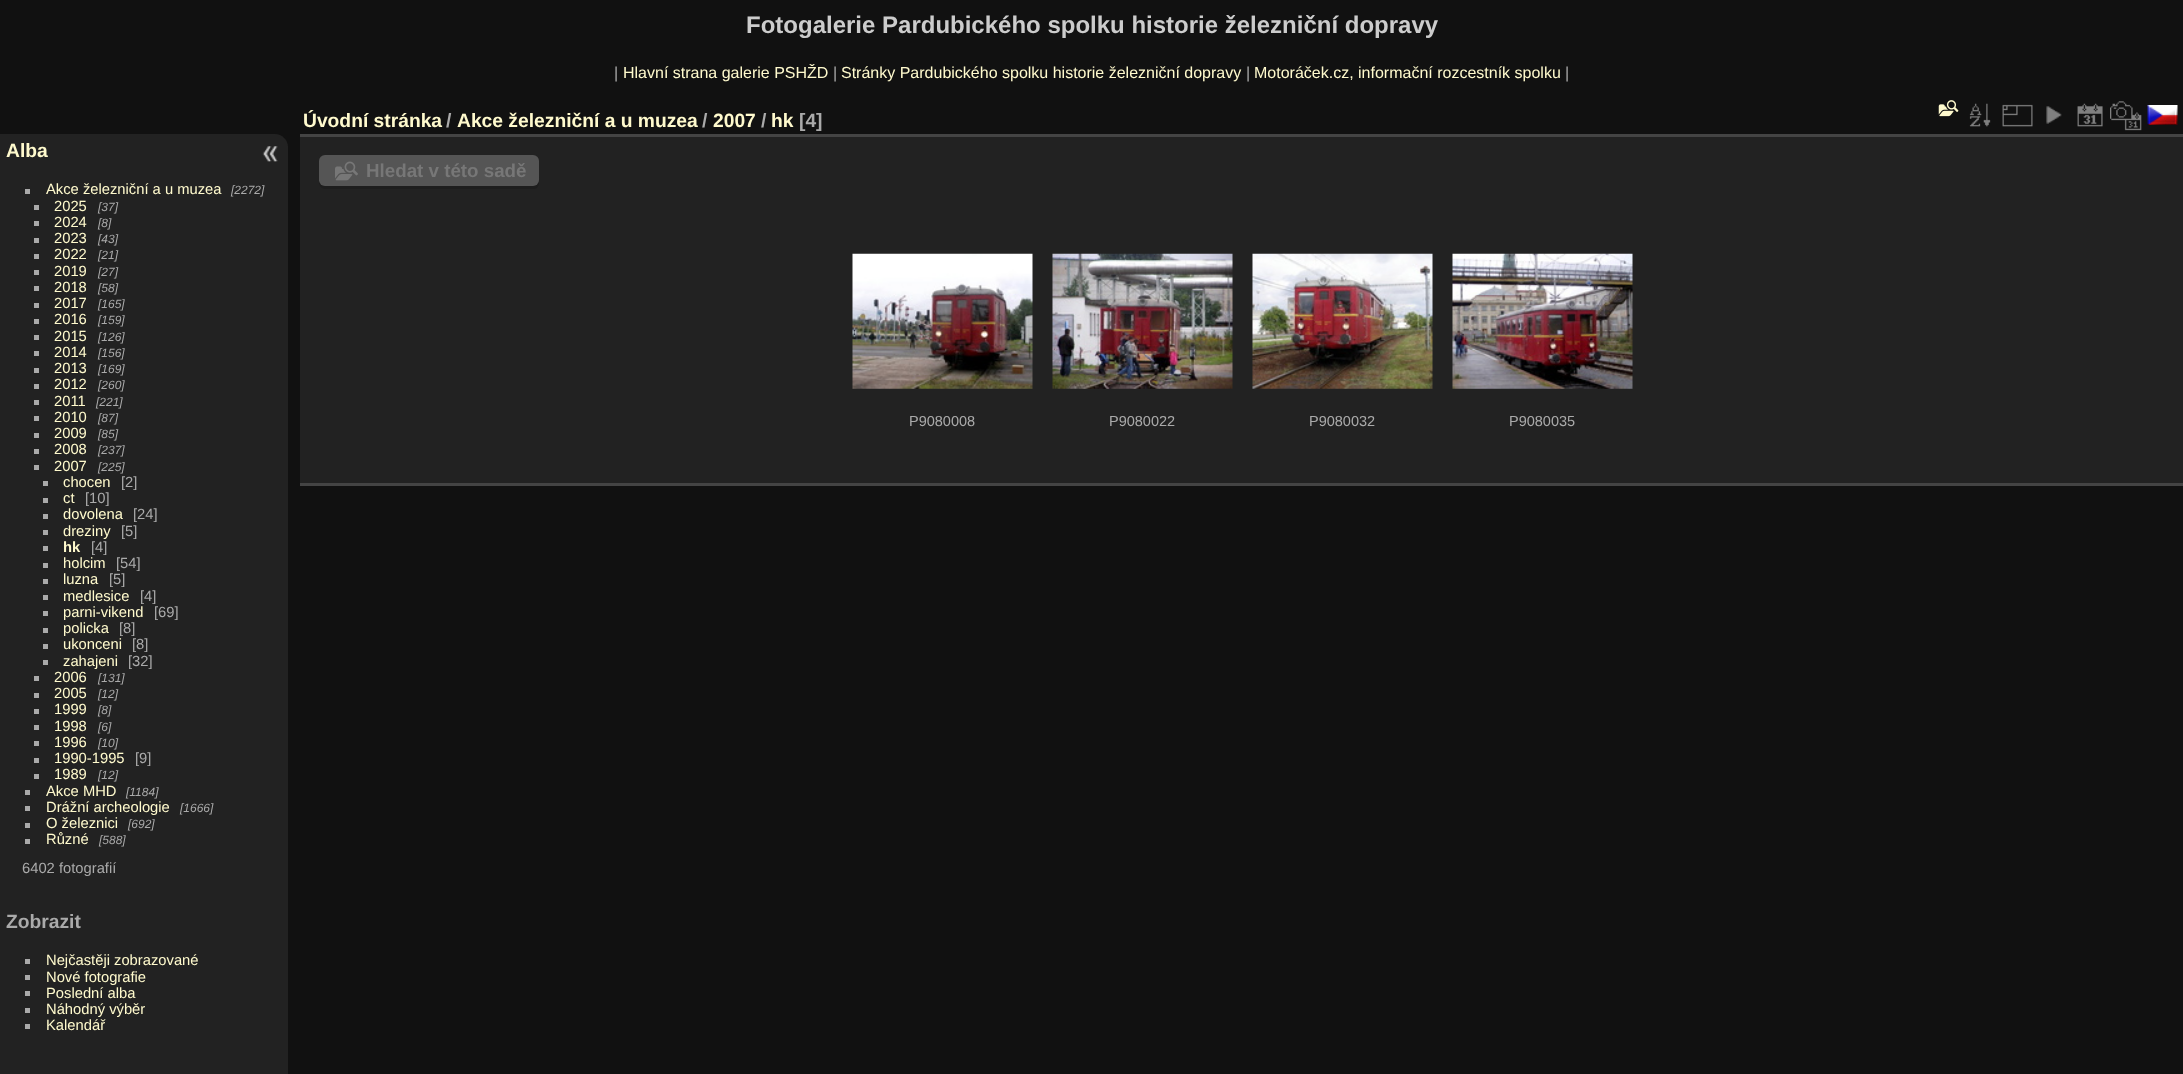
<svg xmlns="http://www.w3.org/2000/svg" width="2183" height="1074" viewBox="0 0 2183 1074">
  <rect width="100%" height="100%" fill="#111"/>
  <path d="M0 134H275C282 134 288 140 288 147V1074C288 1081 282 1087 275 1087H0Z" fill="#222"/>
  <path d="M25 189h5v5H25z" fill="#aaa"/>
  <path d="M34 205h5v5H34z" fill="#aaa"/>
  <path d="M34 221h5v5H34z" fill="#aaa"/>
  <path d="M34 238h5v5H34z" fill="#aaa"/>
  <path d="M34 254h5v5H34z" fill="#aaa"/>
  <path d="M34 270h5v5H34z" fill="#aaa"/>
  <path d="M34 286h5v5H34z" fill="#aaa"/>
  <path d="M34 303h5v5H34z" fill="#aaa"/>
  <path d="M34 319h5v5H34z" fill="#aaa"/>
  <path d="M34 335h5v5H34z" fill="#aaa"/>
  <path d="M34 351h5v5H34z" fill="#aaa"/>
  <path d="M34 368h5v5H34z" fill="#aaa"/>
  <path d="M34 384h5v5H34z" fill="#aaa"/>
  <path d="M34 400h5v5H34z" fill="#aaa"/>
  <path d="M34 416h5v5H34z" fill="#aaa"/>
  <path d="M34 433h5v5H34z" fill="#aaa"/>
  <path d="M34 449h5v5H34z" fill="#aaa"/>
  <path d="M34 465h5v5H34z" fill="#aaa"/>
  <path d="M43 481h5v5H43z" fill="#aaa"/>
  <path d="M43 498h5v5H43z" fill="#aaa"/>
  <path d="M43 514h5v5H43z" fill="#aaa"/>
  <path d="M43 530h5v5H43z" fill="#aaa"/>
  <path d="M43 546h5v5H43z" fill="#aaa"/>
  <path d="M43 563h5v5H43z" fill="#aaa"/>
  <path d="M43 579h5v5H43z" fill="#aaa"/>
  <path d="M43 595h5v5H43z" fill="#aaa"/>
  <path d="M43 611h5v5H43z" fill="#aaa"/>
  <path d="M43 628h5v5H43z" fill="#aaa"/>
  <path d="M43 644h5v5H43z" fill="#aaa"/>
  <path d="M43 660h5v5H43z" fill="#aaa"/>
  <path d="M34 676h5v5H34z" fill="#aaa"/>
  <path d="M34 693h5v5H34z" fill="#aaa"/>
  <path d="M34 709h5v5H34z" fill="#aaa"/>
  <path d="M34 725h5v5H34z" fill="#aaa"/>
  <path d="M34 741h5v5H34z" fill="#aaa"/>
  <path d="M34 758h5v5H34z" fill="#aaa"/>
  <path d="M34 774h5v5H34z" fill="#aaa"/>
  <path d="M25 790h5v5H25z" fill="#aaa"/>
  <path d="M25 806h5v5H25z" fill="#aaa"/>
  <path d="M25 823h5v5H25z" fill="#aaa"/>
  <path d="M25 839h5v5H25z" fill="#aaa"/>
  <path d="M25 959h5v5H25z" fill="#aaa"/>
  <path d="M25 975h5v5H25z" fill="#aaa"/>
  <path d="M25 991h5v5H25z" fill="#aaa"/>
  <path d="M25 1008h5v5H25z" fill="#aaa"/>
  <path d="M25 1024h5v5H25z" fill="#aaa"/>
  <image x="262" y="146" width="16" height="16" href="img/1.png"/>
  <path d="M300 137h1883v346H300z" fill="#222"/>
  <path d="M300 483h1883v3H300z" fill="#444"/>
  <path d="M300 134h1883v3H300z" fill="#444"/>
  <image x="1938" y="100" width="21" height="17" href="img/2.png"/>
  <image x="1969" y="103" width="22" height="24" href="img/3.png"/>
  <image x="2002" y="104" width="31" height="23" href="img/4.png"/>
  <image x="2046" y="106" width="16" height="18" href="img/5.png"/>
  <image x="2077" y="103" width="26" height="24" href="img/6.png"/>
  <image x="2110" y="101" width="32" height="30" href="img/7.png"/>
  <image x="2147" y="105" width="31" height="20" href="img/8.png"/>
  <path d="M319 182C319 185 321 189 325 189H533C540 189 539 181 539 177V162V180C539 183 536 186 532 186H325C322 186 320 184 319 182Z" fill="#1d1d1d"/>
  <rect x="319" y="155" width="220" height="31" rx="6" fill="#555"/>
  <image x="335" y="161" width="23" height="20" href="img/9.png"/>
  <image x="852" y="253" width="181" height="136" href="img/10.png"/>
  <image x="1052" y="253" width="181" height="136" href="img/11.png"/>
  <image x="1252" y="253" width="181" height="136" href="img/12.png"/>
  <image x="1452" y="253" width="181" height="136" href="img/13.png"/>
  <text x="746" y="33" font-family="Liberation Sans" font-size="24" font-weight="bold" fill="#ccc">Fotogalerie Pardubického spolku historie železniční dopravy</text>
  <text x="614" y="78" font-family="Liberation Sans" font-size="16" fill="#aaa">|</text>
  <text x="623" y="78" font-family="Liberation Sans" font-size="16" fill="#fffacd">Hlavní strana galerie PSHŽD</text>
  <text x="833" y="78" font-family="Liberation Sans" font-size="16" fill="#aaa">|</text>
  <text x="841" y="78" font-family="Liberation Sans" font-size="16" fill="#fffacd">Stránky Pardubického spolku historie železniční dopravy</text>
  <text x="1246" y="78" font-family="Liberation Sans" font-size="16" fill="#aaa">|</text>
  <text x="1254" y="78" font-family="Liberation Sans" font-size="16" fill="#fffacd">Motoráček.cz, informační rozcestník spolku</text>
  <text x="1565" y="78" font-family="Liberation Sans" font-size="16" fill="#aaa">|</text>
  <text x="6" y="157" font-family="Liberation Sans" font-size="19.25" font-weight="bold" fill="#fffacd">Alba</text>
  <text x="46" y="194" font-family="Liberation Sans" font-size="14.75" fill="#fffacd">Akce železniční a u muzea</text>
  <text x="231" y="194" font-family="Liberation Sans" font-size="12" font-style="italic" fill="#aaa">[2272]</text>
  <text x="54" y="211" font-family="Liberation Sans" font-size="14.75" fill="#fffacd">2025</text>
  <text x="98" y="211" font-family="Liberation Sans" font-size="12" font-style="italic" fill="#aaa">[37]</text>
  <text x="54" y="227" font-family="Liberation Sans" font-size="14.75" fill="#fffacd">2024</text>
  <text x="98" y="227" font-family="Liberation Sans" font-size="12" font-style="italic" fill="#aaa">[8]</text>
  <text x="54" y="243" font-family="Liberation Sans" font-size="14.75" fill="#fffacd">2023</text>
  <text x="98" y="243" font-family="Liberation Sans" font-size="12" font-style="italic" fill="#aaa">[43]</text>
  <text x="54" y="259" font-family="Liberation Sans" font-size="14.75" fill="#fffacd">2022</text>
  <text x="98" y="259" font-family="Liberation Sans" font-size="12" font-style="italic" fill="#aaa">[21]</text>
  <text x="54" y="276" font-family="Liberation Sans" font-size="14.75" fill="#fffacd">2019</text>
  <text x="98" y="276" font-family="Liberation Sans" font-size="12" font-style="italic" fill="#aaa">[27]</text>
  <text x="54" y="292" font-family="Liberation Sans" font-size="14.75" fill="#fffacd">2018</text>
  <text x="98" y="292" font-family="Liberation Sans" font-size="12" font-style="italic" fill="#aaa">[58]</text>
  <text x="54" y="308" font-family="Liberation Sans" font-size="14.75" fill="#fffacd">2017</text>
  <text x="98" y="308" font-family="Liberation Sans" font-size="12" font-style="italic" fill="#aaa">[165]</text>
  <text x="54" y="324" font-family="Liberation Sans" font-size="14.75" fill="#fffacd">2016</text>
  <text x="98" y="324" font-family="Liberation Sans" font-size="12" font-style="italic" fill="#aaa">[159]</text>
  <text x="54" y="341" font-family="Liberation Sans" font-size="14.75" fill="#fffacd">2015</text>
  <text x="98" y="341" font-family="Liberation Sans" font-size="12" font-style="italic" fill="#aaa">[126]</text>
  <text x="54" y="357" font-family="Liberation Sans" font-size="14.75" fill="#fffacd">2014</text>
  <text x="98" y="357" font-family="Liberation Sans" font-size="12" font-style="italic" fill="#aaa">[156]</text>
  <text x="54" y="373" font-family="Liberation Sans" font-size="14.75" fill="#fffacd">2013</text>
  <text x="98" y="373" font-family="Liberation Sans" font-size="12" font-style="italic" fill="#aaa">[169]</text>
  <text x="54" y="389" font-family="Liberation Sans" font-size="14.75" fill="#fffacd">2012</text>
  <text x="98" y="389" font-family="Liberation Sans" font-size="12" font-style="italic" fill="#aaa">[260]</text>
  <text x="54" y="406" font-family="Liberation Sans" font-size="14.75" fill="#fffacd">2011</text>
  <text x="96" y="406" font-family="Liberation Sans" font-size="12" font-style="italic" fill="#aaa">[221]</text>
  <text x="54" y="422" font-family="Liberation Sans" font-size="14.75" fill="#fffacd">2010</text>
  <text x="98" y="422" font-family="Liberation Sans" font-size="12" font-style="italic" fill="#aaa">[87]</text>
  <text x="54" y="438" font-family="Liberation Sans" font-size="14.75" fill="#fffacd">2009</text>
  <text x="98" y="438" font-family="Liberation Sans" font-size="12" font-style="italic" fill="#aaa">[85]</text>
  <text x="54" y="454" font-family="Liberation Sans" font-size="14.75" fill="#fffacd">2008</text>
  <text x="98" y="454" font-family="Liberation Sans" font-size="12" font-style="italic" fill="#aaa">[237]</text>
  <text x="54" y="471" font-family="Liberation Sans" font-size="14.75" fill="#fffacd">2007</text>
  <text x="98" y="471" font-family="Liberation Sans" font-size="12" font-style="italic" fill="#aaa">[225]</text>
  <text x="63" y="487" font-family="Liberation Sans" font-size="14.75" fill="#fffacd">chocen</text>
  <text x="121" y="487" font-family="Liberation Sans" font-size="14.75" fill="#aaa">[2]</text>
  <text x="63" y="503" font-family="Liberation Sans" font-size="14.75" fill="#fffacd">ct</text>
  <text x="85" y="503" font-family="Liberation Sans" font-size="14.75" fill="#aaa">[10]</text>
  <text x="63" y="519" font-family="Liberation Sans" font-size="14.75" fill="#fffacd">dovolena</text>
  <text x="133" y="519" font-family="Liberation Sans" font-size="14.75" fill="#aaa">[24]</text>
  <text x="63" y="536" font-family="Liberation Sans" font-size="14.75" fill="#fffacd">dreziny</text>
  <text x="121" y="536" font-family="Liberation Sans" font-size="14.75" fill="#aaa">[5]</text>
  <text x="63" y="552" font-family="Liberation Sans" font-size="14.75" font-weight="bold" fill="#fffacd">hk</text>
  <text x="91" y="552" font-family="Liberation Sans" font-size="14.75" fill="#aaa">[4]</text>
  <text x="63" y="568" font-family="Liberation Sans" font-size="14.75" fill="#fffacd">holcim</text>
  <text x="116" y="568" font-family="Liberation Sans" font-size="14.75" fill="#aaa">[54]</text>
  <text x="63" y="584" font-family="Liberation Sans" font-size="14.75" fill="#fffacd">luzna</text>
  <text x="109" y="584" font-family="Liberation Sans" font-size="14.75" fill="#aaa">[5]</text>
  <text x="63" y="601" font-family="Liberation Sans" font-size="14.75" fill="#fffacd">medlesice</text>
  <text x="140" y="601" font-family="Liberation Sans" font-size="14.75" fill="#aaa">[4]</text>
  <text x="63" y="617" font-family="Liberation Sans" font-size="14.75" fill="#fffacd">parni-vikend</text>
  <text x="154" y="617" font-family="Liberation Sans" font-size="14.75" fill="#aaa">[69]</text>
  <text x="63" y="633" font-family="Liberation Sans" font-size="14.75" fill="#fffacd">policka</text>
  <text x="119" y="633" font-family="Liberation Sans" font-size="14.75" fill="#aaa">[8]</text>
  <text x="63" y="649" font-family="Liberation Sans" font-size="14.75" fill="#fffacd">ukonceni</text>
  <text x="132" y="649" font-family="Liberation Sans" font-size="14.75" fill="#aaa">[8]</text>
  <text x="63" y="666" font-family="Liberation Sans" font-size="14.75" fill="#fffacd">zahajeni</text>
  <text x="128" y="666" font-family="Liberation Sans" font-size="14.75" fill="#aaa">[32]</text>
  <text x="54" y="682" font-family="Liberation Sans" font-size="14.75" fill="#fffacd">2006</text>
  <text x="98" y="682" font-family="Liberation Sans" font-size="12" font-style="italic" fill="#aaa">[131]</text>
  <text x="54" y="698" font-family="Liberation Sans" font-size="14.75" fill="#fffacd">2005</text>
  <text x="98" y="698" font-family="Liberation Sans" font-size="12" font-style="italic" fill="#aaa">[12]</text>
  <text x="54" y="714" font-family="Liberation Sans" font-size="14.75" fill="#fffacd">1999</text>
  <text x="98" y="714" font-family="Liberation Sans" font-size="12" font-style="italic" fill="#aaa">[8]</text>
  <text x="54" y="731" font-family="Liberation Sans" font-size="14.75" fill="#fffacd">1998</text>
  <text x="98" y="731" font-family="Liberation Sans" font-size="12" font-style="italic" fill="#aaa">[6]</text>
  <text x="54" y="747" font-family="Liberation Sans" font-size="14.75" fill="#fffacd">1996</text>
  <text x="98" y="747" font-family="Liberation Sans" font-size="12" font-style="italic" fill="#aaa">[10]</text>
  <text x="54" y="763" font-family="Liberation Sans" font-size="14.75" fill="#fffacd">1990-1995</text>
  <text x="135" y="763" font-family="Liberation Sans" font-size="14.75" fill="#aaa">[9]</text>
  <text x="54" y="779" font-family="Liberation Sans" font-size="14.75" fill="#fffacd">1989</text>
  <text x="98" y="779" font-family="Liberation Sans" font-size="12" font-style="italic" fill="#aaa">[12]</text>
  <text x="46" y="796" font-family="Liberation Sans" font-size="14.75" fill="#fffacd">Akce MHD</text>
  <text x="126" y="796" font-family="Liberation Sans" font-size="12" font-style="italic" fill="#aaa">[1184]</text>
  <text x="46" y="812" font-family="Liberation Sans" font-size="14.75" fill="#fffacd">Drážní archeologie</text>
  <text x="180" y="812" font-family="Liberation Sans" font-size="12" font-style="italic" fill="#aaa">[1666]</text>
  <text x="46" y="828" font-family="Liberation Sans" font-size="14.75" fill="#fffacd">O železnici</text>
  <text x="128" y="828" font-family="Liberation Sans" font-size="12" font-style="italic" fill="#aaa">[692]</text>
  <text x="46" y="844" font-family="Liberation Sans" font-size="14.75" fill="#fffacd">Různé</text>
  <text x="99" y="844" font-family="Liberation Sans" font-size="12" font-style="italic" fill="#aaa">[588]</text>
  <text x="22" y="873" font-family="Liberation Sans" font-size="14.75" fill="#aaa">6402 fotografií</text>
  <text x="6" y="928" font-family="Liberation Sans" font-size="19.25" font-weight="bold" fill="#aaa">Zobrazit</text>
  <g font-family="Liberation Sans" font-size="14.75" fill="#fffacd">
    <text x="46" y="965">Nejčastěji zobrazované</text>
    <text x="46" y="982">Nové fotografie</text>
    <text x="46" y="998">Poslední alba</text>
    <text x="46" y="1014">Náhodný výběr</text>
    <text x="46" y="1030">Kalendář</text>
  </g>
  <text x="303" y="127" font-family="Liberation Sans" font-size="19.25" font-weight="bold" fill="#fffacd">Úvodní stránka</text>
  <text x="446" y="127" font-family="Liberation Sans" font-size="19.25" font-weight="bold" fill="#aaa">/</text>
  <text x="457" y="127" font-family="Liberation Sans" font-size="19.25" font-weight="bold" fill="#fffacd">Akce železniční a u muzea</text>
  <text x="702" y="127" font-family="Liberation Sans" font-size="19.25" font-weight="bold" fill="#aaa">/</text>
  <text x="713" y="127" font-family="Liberation Sans" font-size="19.25" font-weight="bold" fill="#fffacd">2007</text>
  <text x="761" y="127" font-family="Liberation Sans" font-size="19.25" font-weight="bold" fill="#aaa">/</text>
  <text x="771" y="127" font-family="Liberation Sans" font-size="19.25" font-weight="bold" fill="#fffacd">hk</text>
  <text x="799" y="127" font-family="Liberation Sans" font-size="19.25" font-weight="bold" fill="#aaa">[4]</text>
  <text x="366" y="177" font-family="Liberation Sans" font-size="18.75" font-weight="bold" fill="#777">Hledat v této sadě</text>
  <g font-family="Liberation Sans" font-size="14.5" fill="#aaa">
    <text x="909" y="426">P9080008</text>
    <text x="1109" y="426">P9080022</text>
    <text x="1309" y="426">P9080032</text>
    <text x="1509" y="426">P9080035</text>
  </g>
</svg>
